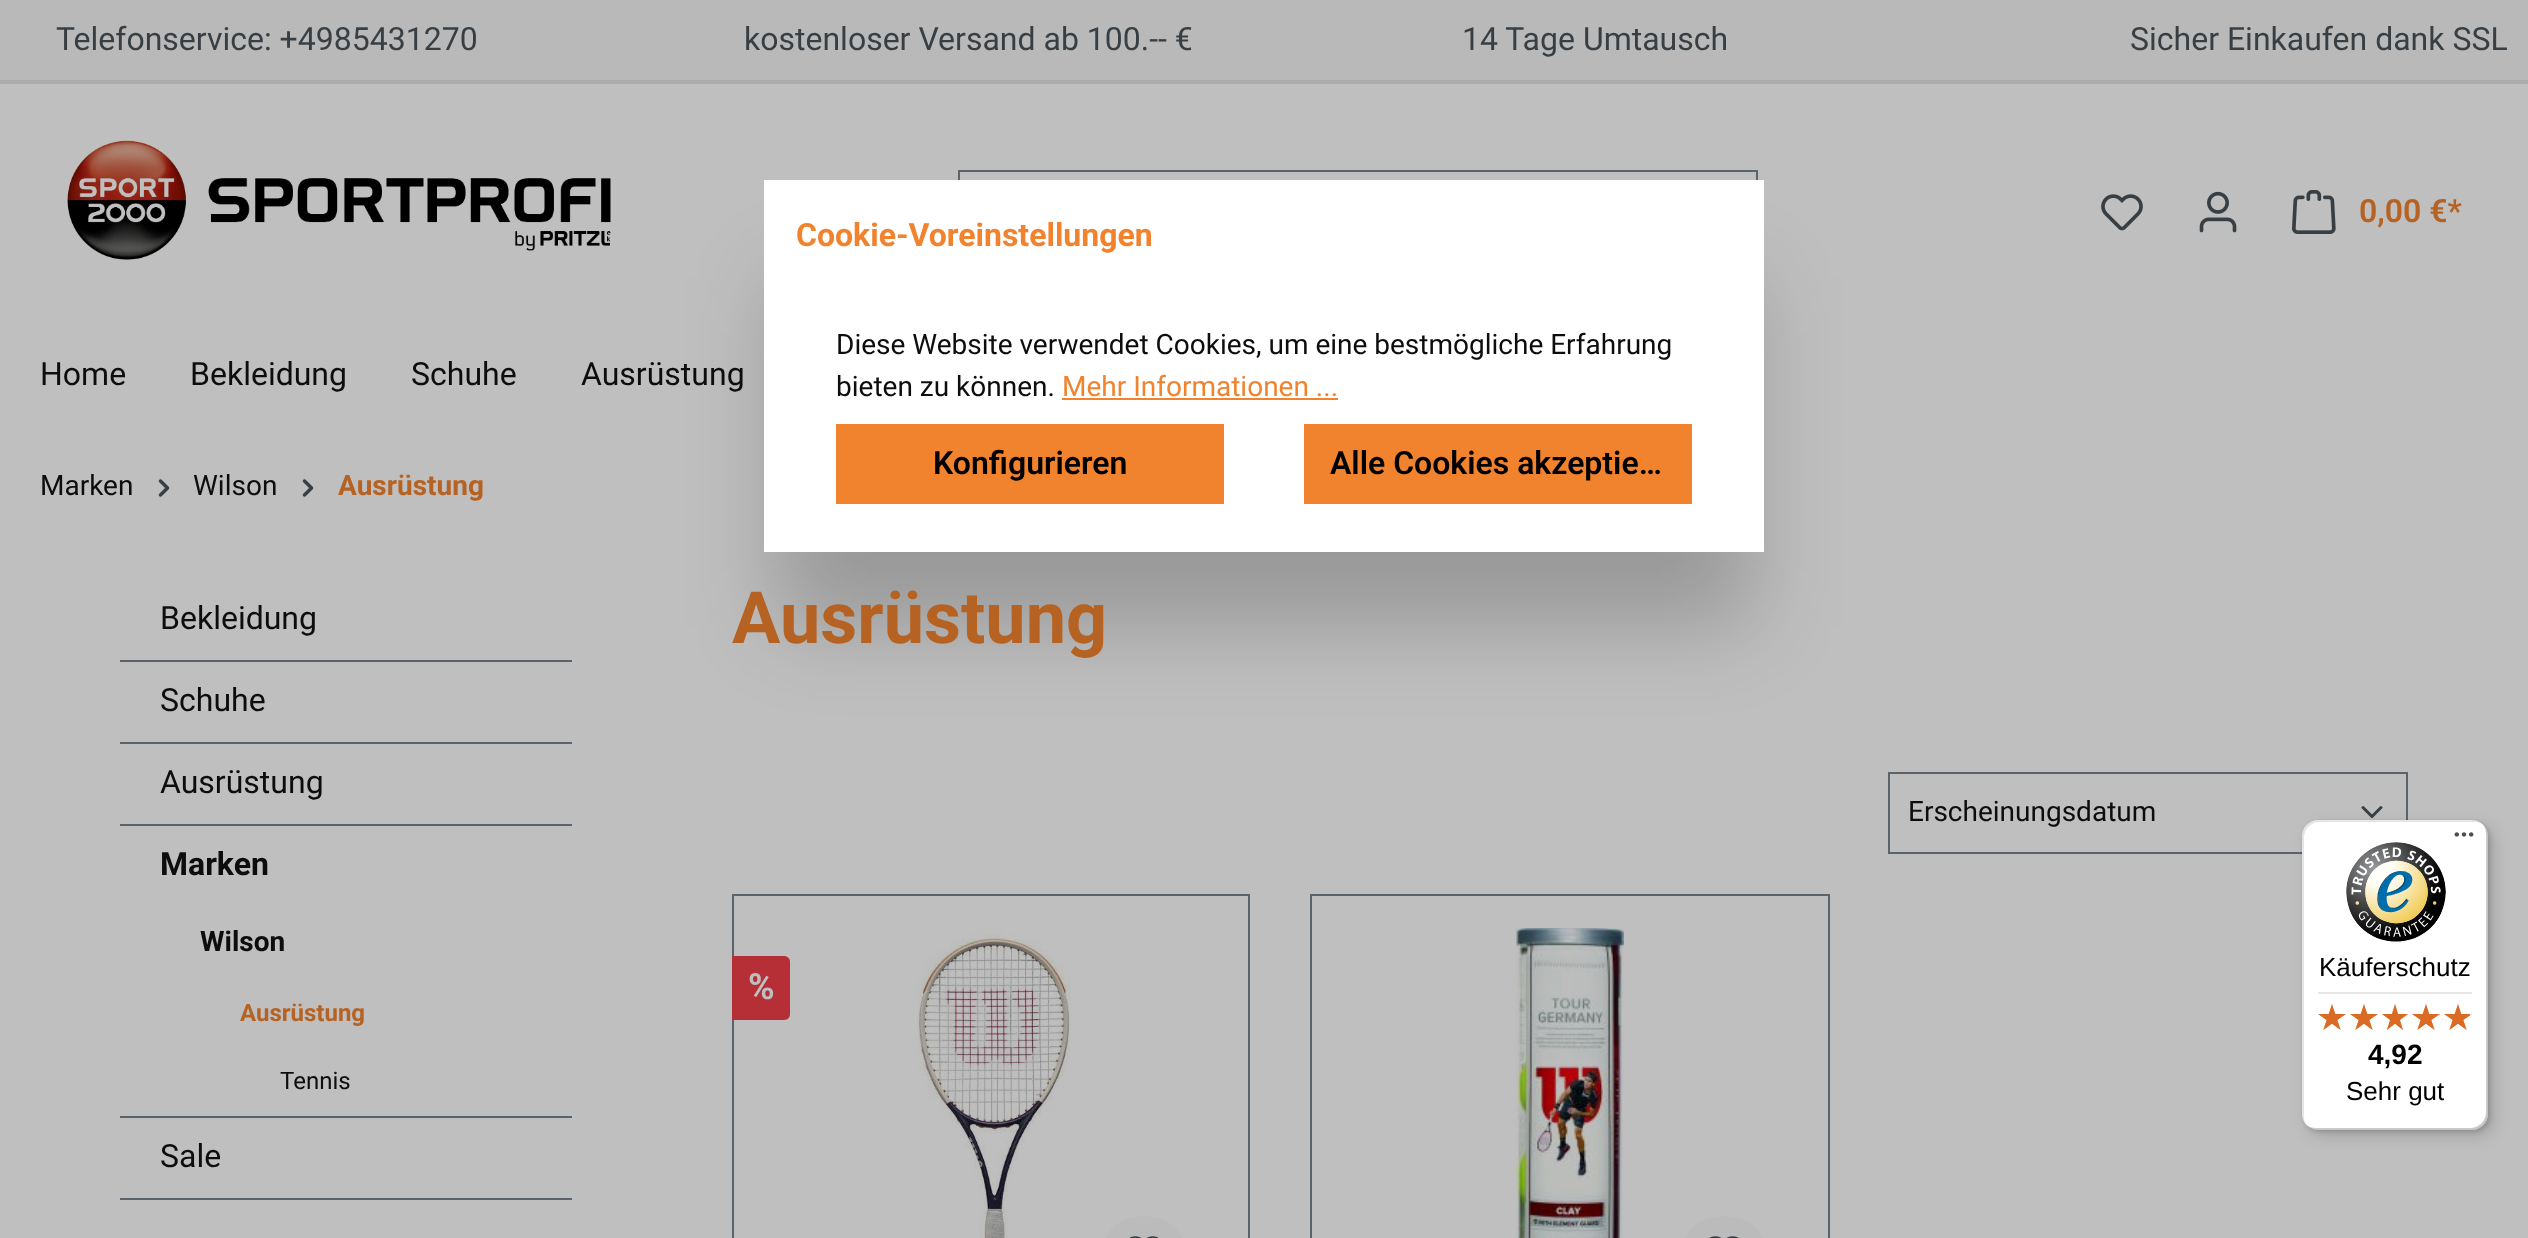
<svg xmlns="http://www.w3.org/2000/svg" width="2528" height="1238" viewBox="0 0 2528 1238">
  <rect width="100%" height="100%" fill="#bfbfbf"/>
  <path d="M0 0h2528v80H0z" fill="#b9b9b9"/>
  <path d="M0 80h2528v4H0z" fill="#acacac"/>
  <image x="67" y="140" width="544" height="120" href="img/1.png"/>
  <path d="M958 170h800v2H958z" fill="#5b636c"/>
  <path d="M958 170h2v10H958z" fill="#5b636c"/>
  <path d="M1756 170h2v10H1756z" fill="#5b636c"/>
  <image x="2101" y="194" width="42" height="37" href="img/2.png"/>
  <image x="2199" y="191" width="38" height="42" href="img/3.png"/>
  <image x="2292" y="190" width="44" height="44" href="img/4.png"/>
  <path d="M776 278h976v348H776z" fill="#00000033" filter="blur(43px)"/>
  <path d="M764 180h1000v372H764z" fill="#fff"/>
  <path d="M1062 398h276v2H1062z" fill="#f2832e"/>
  <path d="M836 424h388v80H836z" fill="#f2832e"/>
  <path d="M1304 424h388v80H1304z" fill="#f2832e"/>
  <image x="158" y="479" width="12" height="18" href="img/5.png"/>
  <image x="302" y="479" width="12" height="18" href="img/5.png"/>
  <path d="M120 660h452v2H120z" fill="#5b636c"/>
  <path d="M120 742h452v2H120z" fill="#5b636c"/>
  <path d="M120 824h452v2H120z" fill="#5b636c"/>
  <path d="M120 1116h452v2H120z" fill="#5b636c"/>
  <path d="M120 1198h452v2H120z" fill="#5b636c"/>
  <path d="M2363 807.5L2372 816.5L2381 807.5" fill="none" stroke="#383f44" stroke-width="3" stroke-linecap="round" stroke-linejoin="round"/>
  <path d="M1889 773h518v80H1889z" fill="none" stroke="#5b636c" stroke-width="2"/>
  <path d="M733 895h516v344H733z" fill="none" stroke="#5b636c" stroke-width="2"/>
  <path d="M732 956H784C787.5 956 790 958.5 790 962V1014C790 1017.5 787.5 1020 784 1020H732Z" fill="#b62f36"/>
  <image x="917" y="928" width="154" height="310" href="img/6.png"/>
  <rect x="1104" y="1216" width="80" height="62" rx="40" fill="#bbb"/>
  <image x="1129" y="1236" width="30" height="2" href="img/7.png"/>
  <path d="M1311 895h518v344H1311z" fill="none" stroke="#5b636c" stroke-width="2"/>
  <image x="1516" y="928" width="108" height="310" href="img/8.png"/>
  <rect x="1684" y="1216" width="80" height="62" rx="40" fill="#bbb"/>
  <image x="1709" y="1236" width="30" height="2" href="img/7.png"/>
  <rect x="2308" y="826" width="186" height="310" rx="16" fill="#00000026" filter="blur(8px)"/>
  <rect x="2304" y="822" width="186" height="310" rx="16" fill="#00000026" filter="blur(2px)"/>
  <rect x="2302" y="820" width="186" height="310" rx="16" fill="#fff"/>
  <path d="M2320 822H2474C2478 822 2481 823 2484 825C2481 822 2477 820 2472 820H2318C2309 820 2302 827 2302 836V1114C2302 1119 2304 1123 2307 1126C2305 1123 2304 1120 2304 1116V838C2304 829 2311 822 2320 822Z" fill="#0000001a"/>
  <path d="M2306 1125C2309 1128 2313 1130 2318 1130H2472C2481 1130 2488 1123 2488 1114V836C2488 831 2486 827 2483 824C2485 827 2486 830 2486 834V1112C2486 1121 2479 1128 2470 1128H2316C2312 1128 2309 1127 2306 1125Z" fill="#00000033"/>
  <path d="M2307 1125C2310 1128 2314 1130 2318 1130H2472C2481 1130 2488 1123 2488 1114V836C2488 832 2486 828 2483 825C2486 828 2487 831 2487 835V1113C2487 1122 2480 1129 2471 1129H2317C2313 1129 2310 1128 2307 1125Z" fill="#32323233"/>
  <path d="M2307 1125C2310 1128 2314 1130 2318 1130H2472C2481 1130 2488 1123 2488 1114V836C2488 832 2486 828 2483 825C2486 828 2487 831 2487 835V1113C2487 1122 2480 1129 2471 1129H2317C2313 1129 2310 1128 2307 1125Z" fill="#ffffff4d"/>
  <image x="2454" y="832" width="20" height="5" href="img/9.png"/>
  <image x="2346" y="842" width="100" height="100" href="img/10.png"/>
  <path d="M2318 992h154v2H2318z" fill="#e5e5e5"/>
  <image x="2318" y="1004" width="28" height="26" href="img/11.png"/>
  <image x="2350" y="1004" width="28" height="26" href="img/11.png"/>
  <image x="2382" y="1004" width="26" height="26" href="img/12.png"/>
  <image x="2412" y="1004" width="28" height="26" href="img/11.png"/>
  <image x="2444" y="1004" width="28" height="26" href="img/11.png"/>
  <image x="2318" y="1004" width="28" height="26" href="img/13.png"/>
  <image x="2350" y="1004" width="28" height="26" href="img/13.png"/>
  <image x="2382" y="1004" width="26" height="26" href="img/14.png"/>
  <image x="2412" y="1004" width="28" height="26" href="img/13.png"/>
  <image x="2444" y="1004" width="26" height="26" href="img/15.png"/>
  <g font-family="Roboto" font-size="32" fill="#383f44">
    <text x="56" y="50">Telefonservice: +4985431270</text>
    <text x="744" y="50">kostenloser Versand ab 100.-- €</text>
    <text x="1462" y="50">14 Tage Umtausch</text>
    <text x="2130" y="50">Sicher Einkaufen dank SSL</text>
  </g>
  <text x="2359" y="222" font-family="Roboto" font-size="32" font-weight="600" fill="#b66223">0,00 €*</text>
  <g font-family="Roboto" font-size="32" fill="#0d0d0d">
    <text x="40" y="385">Home</text>
    <text x="190" y="385">Bekleidung</text>
    <text x="411" y="385">Schuhe</text>
    <text x="581" y="385">Ausrüstung</text>
  </g>
  <text x="796" y="246" font-family="Roboto" font-size="32" font-weight="bold" fill="#f2832e">Cookie-Voreinstellungen</text>
  <g font-family="Roboto" font-size="28" fill="#0d0d0d">
    <text x="836" y="354">Diese Website verwendet Cookies, um eine bestmögliche Erfahrung</text>
    <text x="836" y="396">bieten zu können.</text>
  </g>
  <text x="1062" y="396" font-family="Roboto" font-size="28" fill="#f2832e">Mehr Informationen ...</text>
  <g font-family="Roboto" font-size="32" font-weight="600" fill="#000">
    <text x="933" y="474">Konfigurieren</text>
    <text x="1330" y="474">Alle Cookies akzeptie…</text>
  </g>
  <g font-family="Roboto" font-size="28" fill="#0d0d0d">
    <text x="40" y="495">Marken</text>
    <text x="193" y="495">Wilson</text>
  </g>
  <text x="338" y="495" font-family="Roboto" font-size="28" font-weight="bold" fill="#b66223">Ausrüstung</text>
  <g font-family="Roboto" font-size="32" fill="#0d0d0d">
    <text x="160" y="629">Bekleidung</text>
    <text x="160" y="711">Schuhe</text>
    <text x="160" y="793">Ausrüstung</text>
  </g>
  <text x="160" y="875" font-family="Roboto" font-size="32" font-weight="bold" fill="#0d0d0d">Marken</text>
  <text x="200" y="951" font-family="Roboto" font-size="28" font-weight="bold" fill="#0d0d0d">Wilson</text>
  <text x="240" y="1021" font-family="Roboto" font-size="24" font-weight="bold" fill="#b66223">Ausrüstung</text>
  <text x="280" y="1089" font-family="Roboto" font-size="24" fill="#0d0d0d">Tennis</text>
  <text x="160" y="1167" font-family="Roboto" font-size="32" fill="#0d0d0d">Sale</text>
  <text x="732" y="643" font-family="Roboto" font-size="72" font-weight="bold" fill="#b66223">Ausrüstung</text>
  <text x="1908" y="821" font-family="Roboto" font-size="28" fill="#0d0d0d">Erscheinungsdatum</text>
  <text x="748" y="999" font-family="Roboto" font-size="36" font-weight="bold" fill="#bfbfbf">%</text>
  <text x="2319" y="976" font-family="Liberation Sans" font-size="26" fill="#000">Käuferschutz</text>
  <text x="2368" y="1064" font-family="Liberation Sans" font-size="28" font-weight="bold" fill="#000">4,92</text>
  <text x="2346" y="1100" font-family="Liberation Sans" font-size="26" fill="#000">Sehr gut</text>
</svg>
